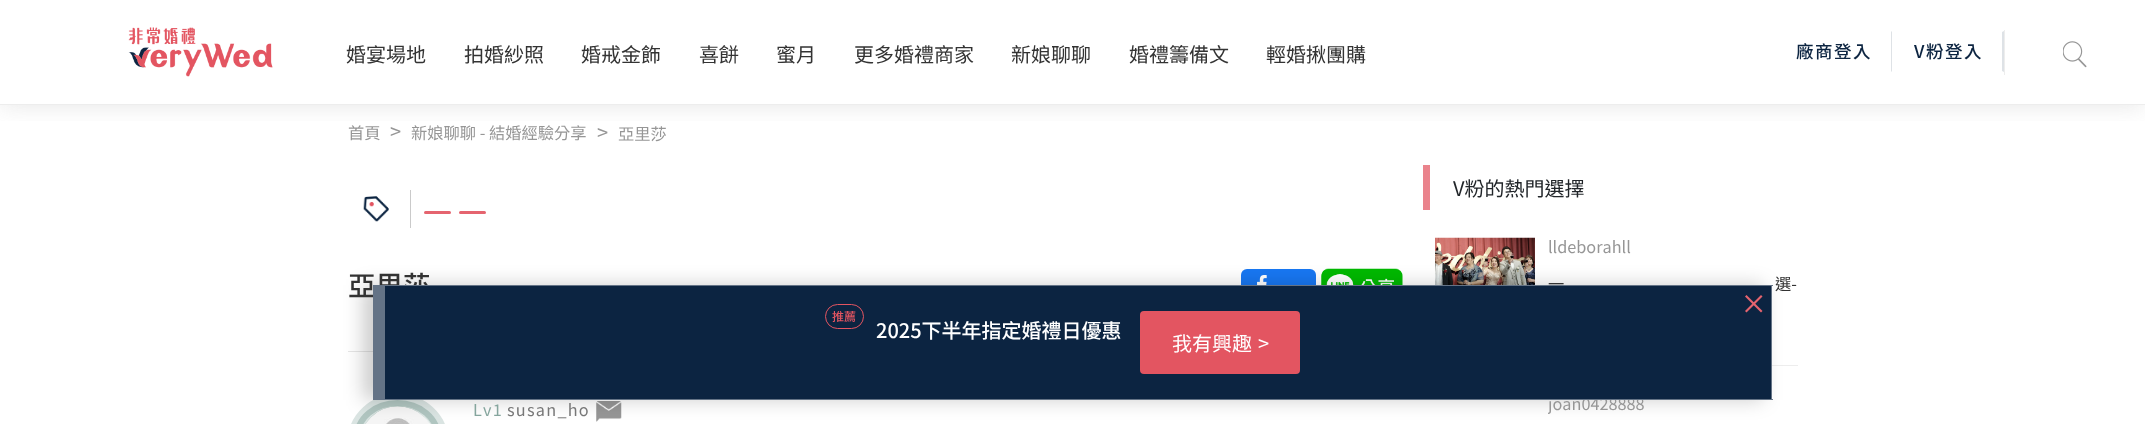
<svg xmlns="http://www.w3.org/2000/svg" width="2145" height="424" viewBox="0 0 2145 424">
  <style>*{font-kerning:none!important;font-variant-ligatures:none!important}</style>
  <defs>
    <clipPath id="clip1"><path d="M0 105h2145v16H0z"/></clipPath>
    <clipPath id="clip2"><path d="M1548 391h250v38H1548z"/></clipPath>
  </defs>
  <rect width="100%" height="100%" fill="#fff"/>
  <g clip-path="url(#clip1)">
    <path d="M0 0h2145v105H0z" fill="#7d7d7d33" filter="blur(12.5px)"/>
  </g>
  <path d="M0 104h2145v1H0z" fill="#ededed"/>
  <image x="128" y="27" width="145" height="50" href="img/1.png"/>
  <path d="M1892 31V72L1891 71V32Z" fill="#dee2e6"/>
  <path d="M2004 31V72L2002 71V32Z" fill="#dee2e6"/>
  <path d="M2004 30h1v45H2004z" fill="#ededed"/>
  <image x="2063" y="41" width="24" height="27" href="img/2.png"/>
  <image x="363" y="196" width="26" height="26" href="img/3.png"/>
  <path d="M410 190h1v38H410z" fill="#cacaca"/>
  <rect x="424" y="211" width="27" height="3" rx="1.5" fill="#e5646f"/>
  <rect x="459" y="211" width="27" height="3" rx="1.5" fill="#e5646f"/>
  <rect x="1241" y="269" width="75" height="36" rx="6" fill="#1877f2"/>
  <image x="1257" y="275" width="10" height="10" href="img/4.png"/>
  <image x="1321" y="268" width="82" height="17" href="img/5.png"/>
  <path d="M348 351h25v1H348z" fill="#e6e6e6"/>
  <rect x="354.5" y="400.5" width="87" height="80" rx="43.5" fill="none" stroke="#dae4e2" stroke-width="13"/>
  <rect x="357" y="403" width="81" height="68" rx="40.5" fill="none" stroke="#b0c5c0" stroke-width="6"/>
  <path d="M398 407C418 407 435 423 435 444C435 410 395 393 371 417C366 422 362 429 361 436C359 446 361 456 366 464C373 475 385 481 398 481C377 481 361 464 361 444C361 424 378 407 398 407Z" fill="#85a59d4d"/>
  <image x="366" y="406" width="63" height="18" href="img/6.png"/>
  <image x="596" y="401" width="26" height="21" href="img/7.png"/>
  <path d="M1423 165h7v45H1423z" fill="#ea838c"/>
  <path d="M1772 365h26v1H1772z" fill="#ededed"/>
  <image x="1435" y="237" width="100" height="48" href="img/8.png"/>
  <path d="M363 285h1400v115H363z" fill="#00000033" filter="blur(9.5px)"/>
  <g font-family="Noto Sans TC" font-size="20" fill="#333">
    <text x="346" y="62">婚宴場地</text>
    <text x="464" y="62">拍婚紗照</text>
    <text x="581" y="62">婚戒金飾</text>
    <text x="699" y="62">喜餅</text>
    <text x="776" y="62">蜜月</text>
    <text x="854" y="62">更多婚禮商家</text>
    <text x="1011" y="62">新娘聊聊</text>
    <text x="1129" y="62">婚禮籌備文</text>
    <text x="1266" y="62">輕婚揪團購</text>
  </g>
  <g font-family="Noto Sans TC" font-size="17.5" font-weight="500" letter-spacing="1.5" fill="#0c2441">
    <text x="1796" y="58">廠商登入</text>
    <text x="1914" y="58">V粉登入</text>
  </g>
  <text x="348" y="139" font-family="Noto Sans TC" font-size="16.25" fill="#969696">首頁</text>
  <text x="390" y="139" font-family="Noto Sans TC" font-size="20" fill="#969696">&gt;</text>
  <text x="411" y="139" font-family="Noto Sans TC" font-size="16.25" fill="#969696">新娘聊聊 - 結婚經驗分享</text>
  <text x="597" y="140" font-family="Noto Sans TC" font-size="20" fill="#969696">&gt;</text>
  <text x="618" y="140" font-family="Noto Sans TC" font-size="16.25" fill="#969696">亞里莎</text>
  <text x="348" y="296" font-family="Noto Sans TC" font-size="27.5" font-weight="500" fill="#333">亞里莎</text>
  <text x="473" y="416" font-family="Noto Sans TC" font-size="16.25" letter-spacing="1.25" fill="#85a59d">Lv1</text>
  <text x="507" y="416" font-family="Noto Sans TC" font-size="16.25" letter-spacing="1.25" fill="#777">susan_ho</text>
  <text x="1453" y="196" font-family="Noto Sans TC" font-size="20" fill="#212529">V粉的熱門選擇</text>
  <text x="1548" y="253" font-family="Noto Sans TC" font-size="16.25" fill="#969696">lldeborahll</text>
  <g font-family="Noto Sans TC" font-size="16.25" fill="#333">
    <text x="1548" y="290">一</text>
    <text x="1775" y="290">選-</text>
  </g>
  <g clip-path="url(#clip2)">
    <text x="1548" y="410" font-family="Noto Sans TC" font-size="16.25" fill="#969696">joan0428888</text>
  </g>
  <path d="M385 286h1386v113H385z" fill="#0c2441"/>
  <path d="M385 285h1388v1H385z" fill="#647386"/>
  <path d="M1771 285h1v115H1771z" fill="#647386"/>
  <path d="M385 399h1388v1H385z" fill="#647386"/>
  <path d="M373 285h12v115H373z" fill="#647386"/>
  <path d="M1761 295L1762.5 296.5L1746.5 312.5L1745 311Z" fill="#e5646f"/>
  <path d="M1745 296.5L1746.5 295L1762.5 311L1761 312.5Z" fill="#e5646f"/>
  <rect x="825.5" y="304.5" width="38" height="24" rx="12" fill="none" stroke="#e35561"/>
  <text x="832" y="321" font-family="Noto Sans TC" font-size="12" font-weight="500" fill="#e35561">推薦</text>
  <text x="876" y="338" font-family="Noto Sans TC" font-size="20" font-weight="500" fill="#fff">2025下半年指定婚禮日優惠</text>
  <rect x="1140" y="311" width="160" height="63" rx="4" fill="#e35561"/>
  <g font-family="Noto Sans TC" font-size="20" fill="#fff">
    <text x="1172" y="351">我有興趣</text>
    <text x="1258" y="351">&gt;</text>
  </g>
</svg>
